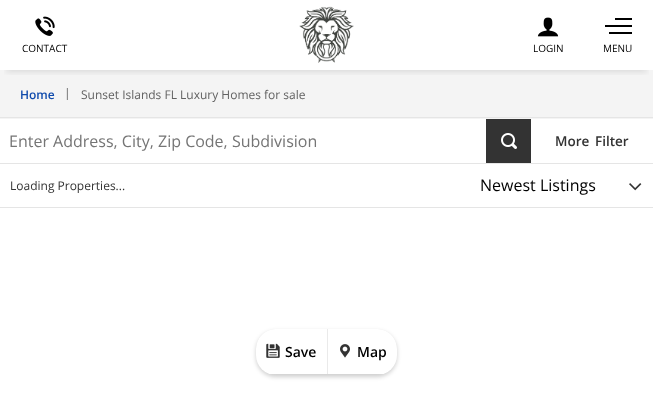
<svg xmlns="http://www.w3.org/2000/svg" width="653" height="395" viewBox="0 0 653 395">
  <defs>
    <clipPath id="clip1"><path d="M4 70h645v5H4z"/></clipPath>
    <clipPath id="clip2"><rect x="256" y="329" width="141" height="46" rx="20"/></clipPath>
  </defs>
  <rect width="100%" height="100%" fill="#fff"/>
  <path d="M0 70h653v47H0z" fill="#f4f4f4"/>
  <g clip-path="url(#clip1)">
    <path d="M6 14h641v58H6z" fill="#0000001a" filter="blur(3px)"/>
  </g>
  <image x="299" y="6" width="55" height="57" href="img/1.png"/>
  <image x="35" y="16" width="20" height="20" href="img/2.png"/>
  <image x="537" y="17" width="22" height="20" href="img/3.png"/>
  <path d="M605 25h27v2H605z" fill="#000"/>
  <path d="M615 18h17v2H615z" fill="#000"/>
  <path d="M609 32h23v2H609z" fill="#000"/>
  <path d="M0 118h653v1H0z" fill="#f4f4f4"/>
  <path d="M0 117h653v1H0z" fill="#e5e5e5"/>
  <path d="M0 163h653v1H0z" fill="#e5e5e5"/>
  <path d="M486 119h45v44H486z" fill="#333"/>
  <image x="501" y="133" width="16" height="16" href="img/4.png"/>
  <path d="M0 207h653v1H0z" fill="#e5e5e5"/>
  <image x="629" y="183" width="13" height="8" href="img/5.png"/>
  <rect x="256" y="331" width="141" height="46" rx="20" fill="#00000030" filter="blur(2px)"/>
  <g clip-path="url(#clip2)">
    <path d="M276 329H327V374H256V349C256 338 265 329 276 329Z" fill="#fff"/>
  </g>
  <image x="266" y="343" width="14" height="15" href="img/6.png"/>
  <g clip-path="url(#clip2)">
    <path d="M327 329H377C388 329 397 338 397 349V374H327Z" fill="#fff"/>
  </g>
  <path d="M327 329h1v45H327z" fill="#eaeaea"/>
  <image x="340" y="344" width="10" height="14" href="img/7.png"/>
  <g font-family="Open Sans" font-size="10" fill="#000">
    <text x="22" y="52">CONTACT</text>
    <text x="533" y="52">LOGIN</text>
    <text x="603" y="52">MENU</text>
  </g>
  <text x="20" y="99" font-family="Open Sans" font-size="12" font-weight="600" fill="#0f4aac">Home</text>
  <g font-family="Open Sans" font-size="12" fill="#626262">
    <text x="64" y="97">|</text>
    <text x="81" y="99">Sunset Islands FL Luxury Homes for sale</text>
  </g>
  <text x="9" y="147" font-family="Open Sans" font-size="16" fill="#757575">Enter Address, City, Zip Code, Subdivision</text>
  <g font-family="Open Sans" font-size="13.5" font-weight="600" fill="#333">
    <text x="555" y="146">More</text>
    <text x="595" y="146">Filter</text>
  </g>
  <text x="10" y="190" font-family="Open Sans" font-size="12" fill="#333">Loading Properties...</text>
  <text x="480" y="191" font-family="Open Sans" font-size="16" fill="#000">Newest Listings</text>
  <g font-family="Open Sans" font-size="14" font-weight="600" fill="#000">
    <text x="285" y="357">Save</text>
    <text x="357" y="357">Map</text>
  </g>
</svg>
